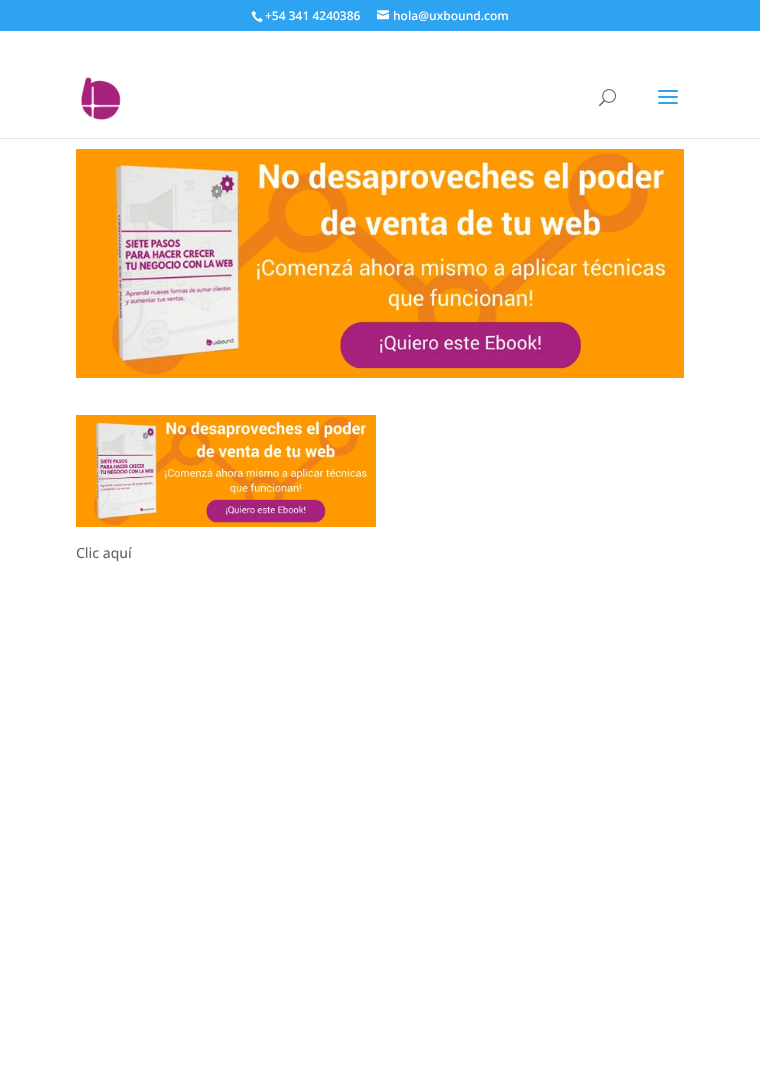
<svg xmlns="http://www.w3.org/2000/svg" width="760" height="1072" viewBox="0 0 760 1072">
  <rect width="100%" height="100%" fill="#fff"/>
  <path d="M0 0h760v31H0z" fill="#2ea3f2"/>
  <image x="251" y="11" width="12" height="12" href="img/1.png"/>
  <image x="377" y="10" width="12" height="10" href="img/2.png"/>
  <path d="M0 138h760v1H0z" fill="#e6e6e6"/>
  <image x="81" y="77" width="40" height="43" href="img/3.png"/>
  <image x="599" y="89" width="17" height="18" href="img/4.png"/>
  <image x="658" y="90" width="20" height="14" href="img/5.png"/>
  <image x="76" y="149" width="608" height="229" href="img/6.png"/>
  <image x="76" y="415" width="300" height="112" href="img/7.png"/>
  <g font-family="Open Sans" font-size="12" font-weight="600" fill="#fff">
    <text x="265" y="20">+54 341 4240386</text>
    <text x="393" y="20">hola@uxbound.com</text>
  </g>
  <text x="76" y="558" font-family="Open Sans" font-size="14" font-weight="500" fill="#666">Clic aquí</text>
</svg>
